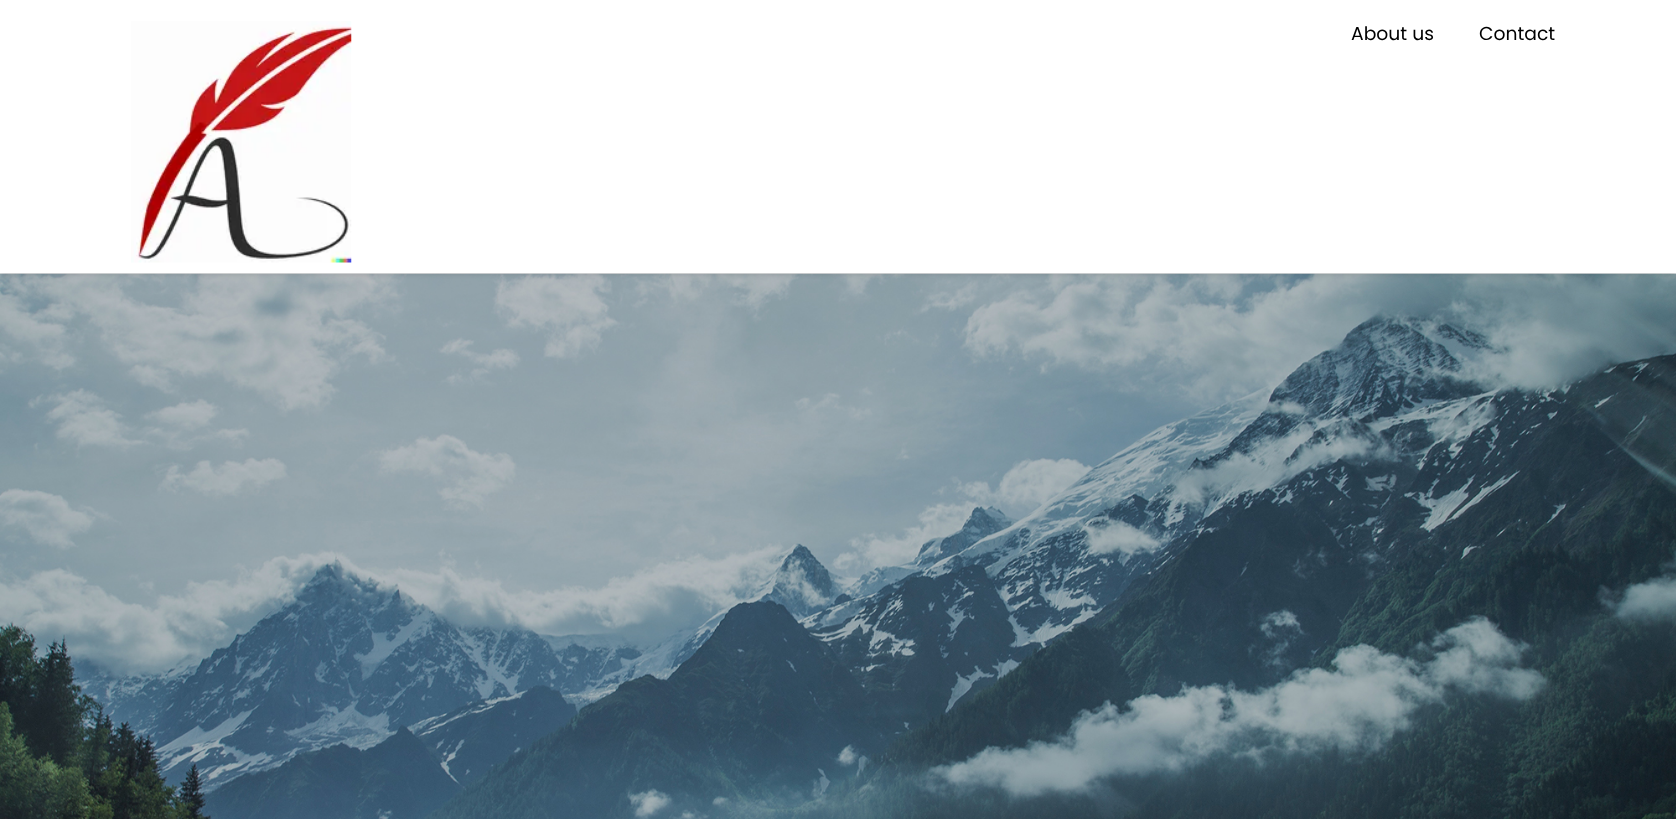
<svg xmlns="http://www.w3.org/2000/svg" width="1676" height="819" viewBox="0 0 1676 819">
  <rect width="100%" height="100%" fill="#eee"/>
  <image x="0" y="273" width="1676" height="546" href="img/2.png"/>
  <path d="M0 3h1676v272H0z" fill="#0000001a" filter="blur(2.5px)"/>
  <path d="M0 0h1676v273H0z" fill="#fff"/>
  <image x="131" y="21" width="221" height="242" href="img/1.png"/>
  <g font-family="Poppins" font-size="18.75" fill="#000">
    <text x="1351" y="40">About us</text>
    <text x="1479" y="40">Contact</text>
  </g>
</svg>
